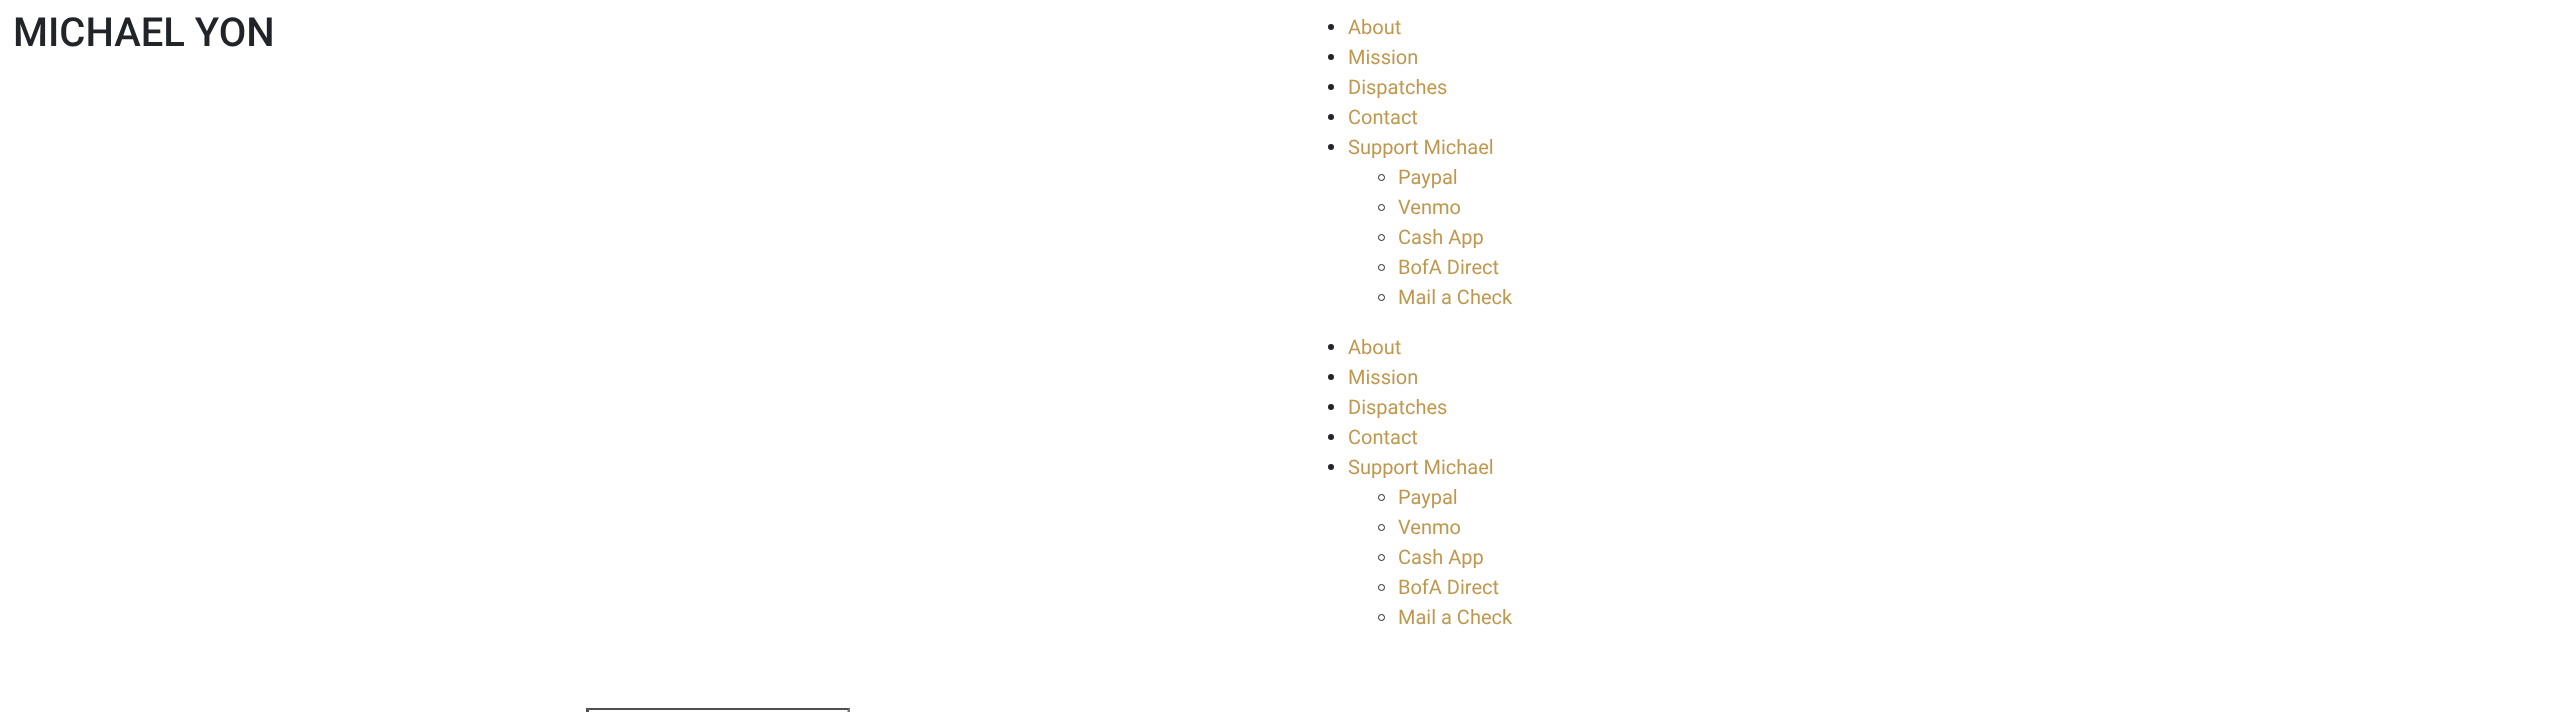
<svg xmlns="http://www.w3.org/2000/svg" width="2571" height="712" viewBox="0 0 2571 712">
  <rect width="100%" height="100%" fill="#fff"/>
  <circle cx="1331" cy="27" r="3" fill="#212529"/>
  <circle cx="1331" cy="57" r="3" fill="#212529"/>
  <circle cx="1331" cy="87" r="3" fill="#212529"/>
  <circle cx="1331" cy="117" r="3" fill="#212529"/>
  <circle cx="1331" cy="147" r="3" fill="#212529"/>
  <circle cx="1381.5" cy="177.5" r="3" fill="none" stroke="#212529"/>
  <circle cx="1381.5" cy="207.5" r="3" fill="none" stroke="#212529"/>
  <circle cx="1381.5" cy="237.5" r="3" fill="none" stroke="#212529"/>
  <circle cx="1381.5" cy="267.5" r="3" fill="none" stroke="#212529"/>
  <circle cx="1381.5" cy="297.5" r="3" fill="none" stroke="#212529"/>
  <circle cx="1331" cy="347" r="3" fill="#212529"/>
  <circle cx="1331" cy="377" r="3" fill="#212529"/>
  <circle cx="1331" cy="407" r="3" fill="#212529"/>
  <circle cx="1331" cy="437" r="3" fill="#212529"/>
  <circle cx="1331" cy="467" r="3" fill="#212529"/>
  <circle cx="1381.5" cy="497.5" r="3" fill="none" stroke="#212529"/>
  <circle cx="1381.5" cy="527.5" r="3" fill="none" stroke="#212529"/>
  <circle cx="1381.5" cy="557.5" r="3" fill="none" stroke="#212529"/>
  <circle cx="1381.5" cy="587.5" r="3" fill="none" stroke="#212529"/>
  <circle cx="1381.5" cy="617.5" r="3" fill="none" stroke="#212529"/>
  <path d="M586 708H850L848 710H589Z" fill="#4f4f4f"/>
  <path d="M850 707.5V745L847.5 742.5V710Z" fill="#767676"/>
  <path d="M586 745V707.5L589 710V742.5Z" fill="#4f4f4f"/>
  <text x="13" y="46" font-family="Roboto" font-size="40" font-weight="500" fill="#212529">MICHAEL YON</text>
  <g font-family="Roboto" font-size="20" fill="#bf9850">
    <text x="1348" y="34">About</text>
    <text x="1348" y="64">Mission</text>
    <text x="1348" y="94">Dispatches</text>
    <text x="1348" y="124">Contact</text>
    <text x="1348" y="154">Support Michael</text>
    <text x="1398" y="184">Paypal</text>
    <text x="1398" y="214">Venmo</text>
    <text x="1398" y="244">Cash App</text>
    <text x="1398" y="274">BofA Direct</text>
    <text x="1398" y="304">Mail a Check</text>
    <text x="1348" y="354">About</text>
    <text x="1348" y="384">Mission</text>
    <text x="1348" y="414">Dispatches</text>
    <text x="1348" y="444">Contact</text>
    <text x="1348" y="474">Support Michael</text>
    <text x="1398" y="504">Paypal</text>
    <text x="1398" y="534">Venmo</text>
    <text x="1398" y="564">Cash App</text>
    <text x="1398" y="594">BofA Direct</text>
    <text x="1398" y="624">Mail a Check</text>
  </g>
</svg>
